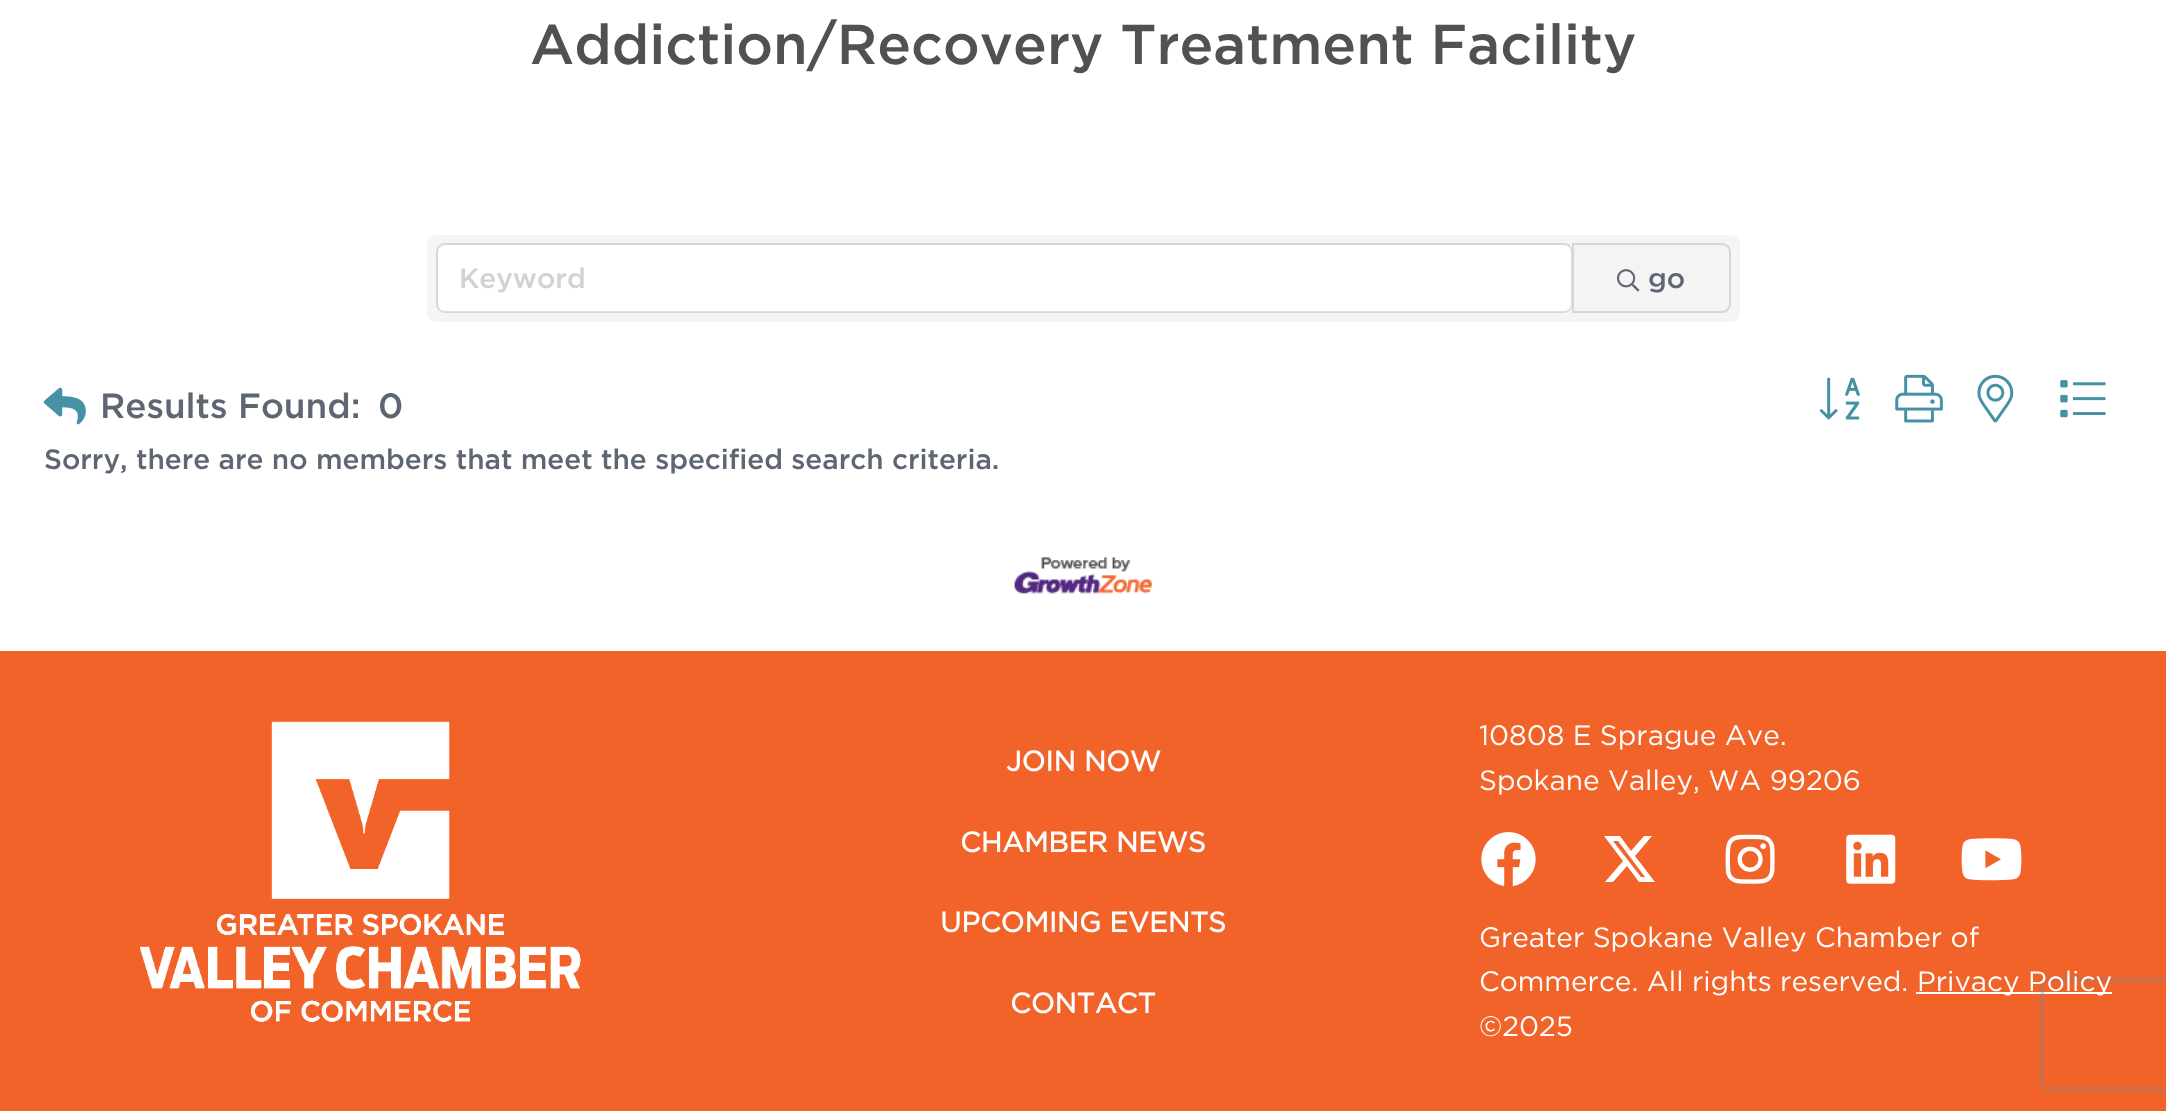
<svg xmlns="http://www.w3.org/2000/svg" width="2166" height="1111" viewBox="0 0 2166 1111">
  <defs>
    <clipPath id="clip1"><path d="M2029 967H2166V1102H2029ZM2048 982H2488C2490 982 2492 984 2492 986V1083C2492 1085 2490 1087 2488 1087H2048C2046 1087 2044 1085 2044 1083V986C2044 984 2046 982 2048 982Z" clip-rule="evenodd"/></clipPath>
  </defs>
  <rect width="100%" height="100%" fill="#fff"/>
  <rect x="427" y="235" width="1313" height="87" rx="9" fill="#f5f5f5"/>
  <rect x="438" y="245" width="1134" height="67" rx="7" fill="#fff"/>
  <rect x="437" y="244" width="1135" height="68" rx="8" fill="none" stroke="#0000001f" stroke-width="2"/>
  <path d="M1573 244H1722C1726.5 244 1730 247.5 1730 252V304C1730 308.5 1726.5 312 1722 312H1573Z" fill="#f4f4f4" stroke="#d6d6d6" stroke-width="2"/>
  <image x="1617" y="269" width="23" height="23" href="img/1.png"/>
  <image x="43" y="387" width="43" height="38" href="img/2.png"/>
  <image x="1819" y="377" width="41" height="43" href="img/3.png"/>
  <image x="1895" y="374" width="48" height="49" href="img/4.png"/>
  <image x="1977" y="374" width="37" height="49" href="img/5.png"/>
  <image x="2060" y="380" width="46" height="38" href="img/6.png"/>
  <image x="1014" y="557" width="139" height="37" href="img/7.png"/>
  <path d="M0 651h2166v460H0z" fill="#f26329"/>
  <image x="140" y="721" width="441" height="301" href="img/8.png"/>
  <image x="1481" y="832" width="55" height="54" href="img/9.png"/>
  <path d="M1644 836H1652L1635 856L1655 882H1639L1627 866L1613 882H1605L1623 861L1604 836H1620L1631 851ZM1641 877H1645L1618 841H1613Z" fill="#fff"/>
  <image x="1725" y="834" width="50" height="50" href="img/10.png"/>
  <image x="1846" y="834" width="50" height="50" href="img/11.png"/>
  <image x="1961" y="838" width="61" height="43" href="img/12.png"/>
  <path d="M1916 992h196v2H1916z" fill="#fff"/>
  <g clip-path="url(#clip1)">
    <rect x="2044" y="982" width="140" height="105" rx="4" fill="#808080" filter="blur(4.5px)"/>
  </g>
  <text x="530" y="64" font-family="Gotham" font-size="56" font-weight="500" fill="#515151">Addiction/Recovery Treatment Facility</text>
  <text x="459" y="288" font-family="Gotham" font-size="28" font-weight="500" fill="#d2d2d2">Keyword</text>
  <text x="1648" y="288" font-family="Gotham" font-size="28" font-weight="500" fill="#5e6673">go</text>
  <g font-family="Gotham" font-size="35" font-weight="500" fill="#5e6673">
    <text x="100" y="418">Results Found:</text>
    <text x="378" y="418">0</text>
  </g>
  <text x="44" y="469" font-family="Gotham" font-size="28" font-weight="500" fill="#5e6673">Sorry, there are no members that meet the specified search criteria.</text>
  <g font-family="Gotham" font-size="28" font-weight="bold" fill="#fff">
    <text x="1006" y="771">JOIN NOW</text>
    <text x="960" y="852">CHAMBER NEWS</text>
    <text x="940" y="932">UPCOMING EVENTS</text>
    <text x="1010" y="1013">CONTACT</text>
  </g>
  <g font-family="Gotham" font-size="28" fill="#fff">
    <text x="1479" y="745">10808 E Sprague Ave.</text>
    <text x="1479" y="790">Spokane Valley, WA 99206</text>
    <text x="1479" y="947">Greater Spokane Valley Chamber of</text>
    <text x="1479" y="991">Commerce. All rights reserved.</text>
    <text x="1917" y="991">Privacy Policy</text>
    <text x="1479" y="1036">©2025</text>
  </g>
</svg>
